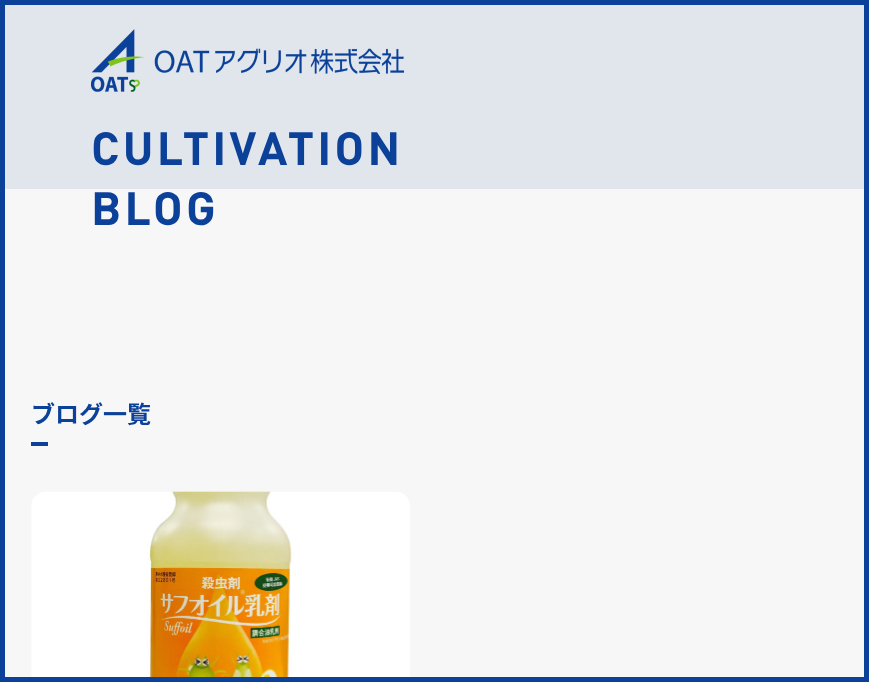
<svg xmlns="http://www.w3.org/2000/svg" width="869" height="682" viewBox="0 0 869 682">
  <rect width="100%" height="100%" fill="#f7f7f7"/>
  <path d="M2.5 2.5h864v677H2.5z" fill="none" stroke="#0c419a" stroke-width="5"/>
  <path d="M5 5h859v184H5z" fill="#e1e6ed"/>
  <image x="91" y="29" width="314" height="63" href="img/1.png"/>
  <path d="M31 442h17v4H31z" fill="#0c419a"/>
  <image x="31" y="491" width="379" height="186" href="img/2.png"/>
  <g font-family="DIN" font-size="46" font-weight="bold" letter-spacing="3.25" fill="#0c419a">
    <text x="91" y="165">CULTIVATION</text>
    <text x="91" y="225">BLOG</text>
  </g>
  <text x="31" y="423" font-family="Noto Sans JP" font-size="24" font-weight="bold" fill="#0c419a">ブログ一覧</text>
</svg>
